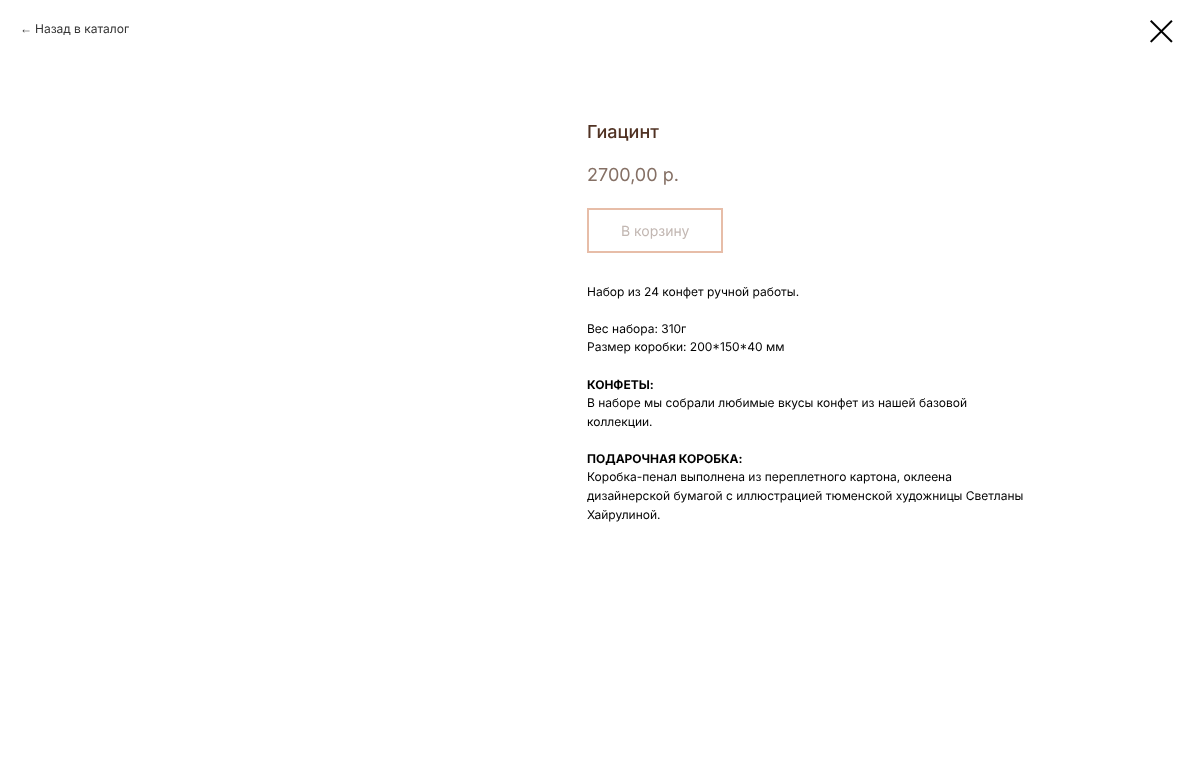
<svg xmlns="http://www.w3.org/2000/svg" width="1193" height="780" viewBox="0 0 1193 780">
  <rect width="100%" height="100%" fill="#fff"/>
  <image x="1150" y="20" width="23" height="23" href="img/1.png"/>
  <path d="M588 209h134v43H588z" fill="none" stroke="#e7bda8" stroke-width="2"/>
  <text x="20" y="33" font-family="Liberation Sans" font-size="12" fill="#333">←</text>
  <text x="35" y="33" font-family="Inter" font-size="12" fill="#333">Назад в каталог</text>
  <text x="587" y="138" font-family="Inter" font-size="18" font-weight="500" fill="#503223">Гиацинт</text>
  <text x="587" y="181" font-family="Inter" font-size="18" fill="#857065">2700,00 р.</text>
  <text x="621" y="236" font-family="Inter" font-size="14" fill="#c2b7b2">В корзину</text>
  <g font-family="Inter" font-size="12" fill="#000">
    <text x="587" y="296">Набор из 24 конфет ручной работы.</text>
    <text x="587" y="333">Вес набора: 310г</text>
    <text x="587" y="351">Размер коробки: 200*150*40 мм</text>
  </g>
  <text x="587" y="389" font-family="Inter" font-size="12" font-weight="bold" fill="#000">КОНФЕТЫ:</text>
  <g font-family="Inter" font-size="12" fill="#000">
    <text x="587" y="407">В наборе мы собрали любимые вкусы конфет из нашей базовой</text>
    <text x="587" y="426">коллекции.</text>
  </g>
  <text x="587" y="463" font-family="Inter" font-size="12" font-weight="bold" fill="#000">ПОДАРОЧНАЯ КОРОБКА:</text>
  <g font-family="Inter" font-size="12" fill="#000">
    <text x="587" y="481">Коробка-пенал выполнена из переплетного картона, оклеена</text>
    <text x="587" y="500">дизайнерской бумагой с иллюстрацией тюменской художницы Светланы</text>
    <text x="587" y="519">Хайрулиной.</text>
  </g>
</svg>
